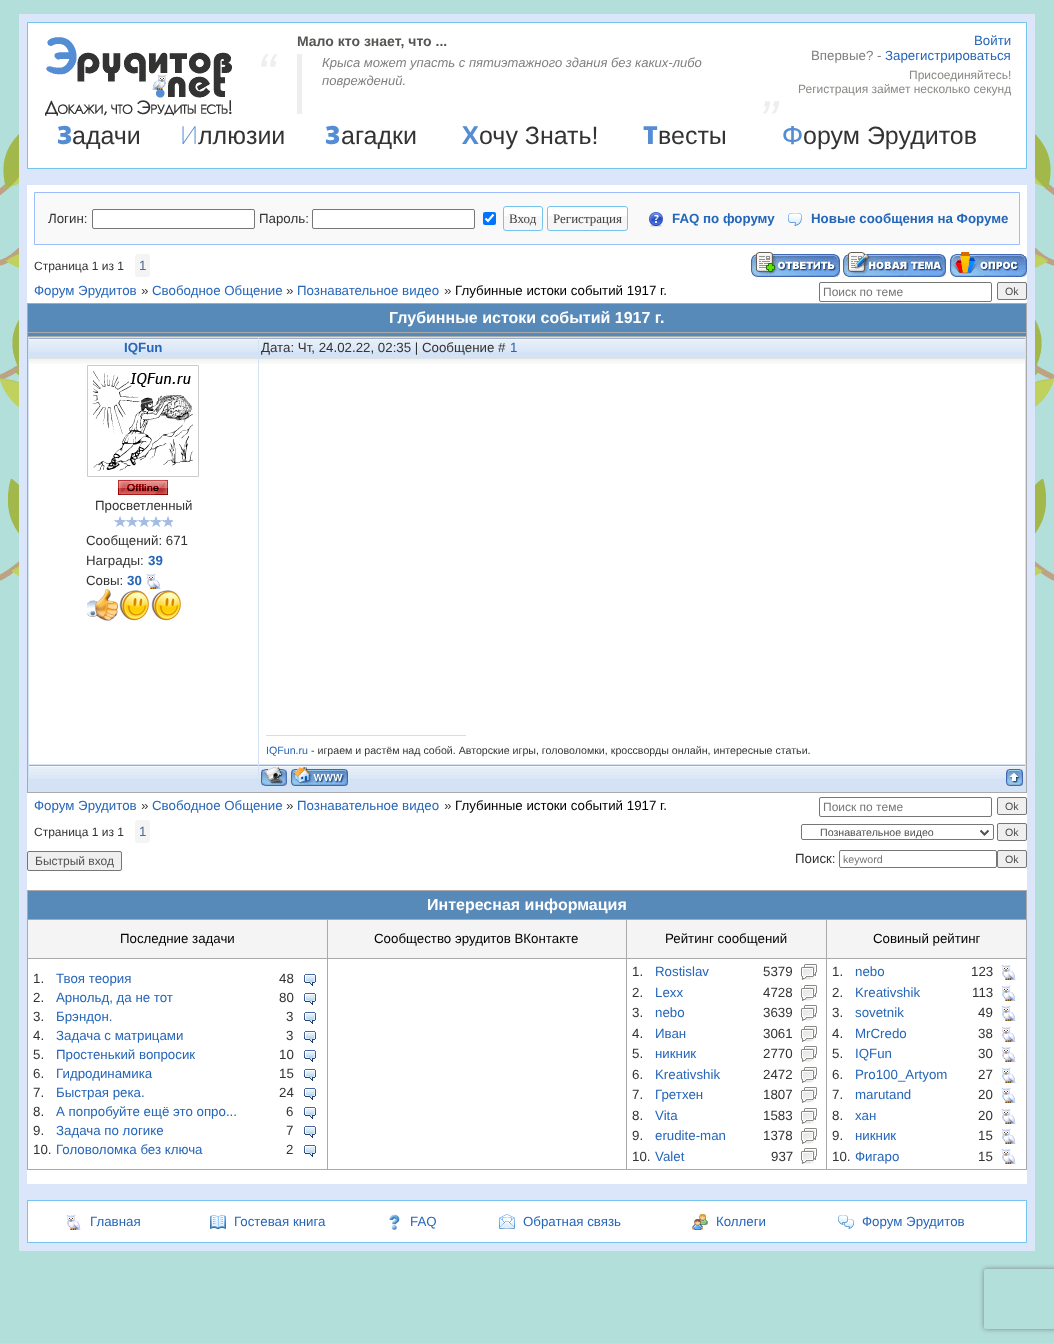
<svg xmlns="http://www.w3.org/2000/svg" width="1054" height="1343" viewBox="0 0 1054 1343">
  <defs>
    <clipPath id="clip1"><path d="M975 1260H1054V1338H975ZM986 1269H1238C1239 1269 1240 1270 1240 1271V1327C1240 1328 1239 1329 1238 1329H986C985 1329 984 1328 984 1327V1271C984 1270 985 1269 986 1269Z" clip-rule="evenodd"/></clipPath>
  </defs>
  <rect width="100%" height="100%" fill="#b2dfda"/>
  <image x="1035" y="82" width="19" height="700" href="img/1.png"/>
  <image x="0" y="82" width="19" height="700" href="img/2.png"/>
  <path d="M28 23h998v145H28z" fill="#fff"/>
  <path d="M23 18h1008v155H23z" fill="none" stroke="#dbe6fa" stroke-width="8"/>
  <path d="M27.5 22.5h999v146H27.5z" fill="none" stroke="#74c4ee"/>
  <image x="45" y="37" width="187" height="79" href="img/3.png"/>
  <path d="M297 54h5v60H297z" fill="#eee"/>
  <path d="M23 181h1008v1007H23z" fill="#fff" stroke="#dbe6fa" stroke-width="8"/>
  <path d="M34.5 192.5h985v52H34.5z" fill="#f9f9f9" stroke="#9dbdff"/>
  <rect x="92.5" y="209.5" width="162" height="19" rx="1.5" fill="#fff" stroke="#767676"/>
  <rect x="312.5" y="209.5" width="162" height="19" rx="1.5" fill="#fff" stroke="#767676"/>
  <rect x="483" y="212" width="13" height="13" rx="2" fill="#0075ff"/>
  <path d="M485.5 218.5L488 221L493.5 214.5" fill="none" stroke="#fff" stroke-width="2.1"/>
  <rect x="503" y="206" width="40" height="25" rx="3" fill="#f6f6f6"/>
  <path d="M503 207h40v9H503z" fill="#fff"/>
  <rect x="503.5" y="206.5" width="39" height="24" rx="2.5" fill="none" stroke="#74c4ee"/>
  <rect x="547" y="206" width="81" height="25" rx="3" fill="#f6f6f6"/>
  <path d="M547 207h81v9H547z" fill="#fff"/>
  <rect x="547.5" y="206.5" width="80" height="24" rx="2.5" fill="none" stroke="#74c4ee"/>
  <image x="649" y="212" width="14" height="15" href="img/4.png"/>
  <image x="788" y="213" width="14" height="13" href="img/5.png"/>
  <rect x="135" y="254" width="15" height="23" rx="3" fill="#f4f4f4"/>
  <image x="751" y="252" width="89" height="25" href="img/6.png"/>
  <image x="843" y="252" width="103" height="25" href="img/7.png"/>
  <image x="950" y="252" width="77" height="25" href="img/8.png"/>
  <rect x="819.5" y="282.5" width="172" height="19" rx="1.5" fill="none" stroke="#767676"/>
  <rect x="997.5" y="282.5" width="29" height="17" rx="1.5" fill="#efefef" stroke="#767676"/>
  <path d="M27 303h1000v490H27z" fill="#aaa"/>
  <path d="M28 304h998v28H28z" fill="#5789b9"/>
  <path d="M28 333h998v3H28z" fill="#5789b9"/>
  <path d="M28 337h998v455H28z" fill="#d3e2f5"/>
  <image x="29" y="338" width="229" height="14" href="img/9.png"/>
  <image x="259" y="338" width="766" height="14" href="img/10.png"/>
  <path d="M29 364h229v400H29z" fill="#fff"/>
  <image x="29" y="358" width="229" height="6" href="img/11.png"/>
  <path d="M87.5 365.5h111v111H87.5z" fill="none" stroke="#ccc"/>
  <image x="93" y="371" width="100" height="100" href="img/12.png"/>
  <image x="118" y="480" width="50" height="15" href="img/13.png"/>
  <image x="114" y="516" width="59" height="11" href="img/14.png"/>
  <image x="146" y="574" width="15" height="15" href="img/15.png"/>
  <image x="86" y="589" width="32" height="32" href="img/16.png"/>
  <image x="119" y="590" width="30" height="31" href="img/17.png"/>
  <image x="151" y="590" width="30" height="31" href="img/17.png"/>
  <path d="M259 364h766v400H259z" fill="#fff"/>
  <image x="259" y="358" width="766" height="6" href="img/18.png"/>
  <path d="M266 735h200v1H266z" fill="#ddd"/>
  <image x="29" y="765" width="229" height="14" href="img/9.png"/>
  <image x="259" y="765" width="766" height="14" href="img/10.png"/>
  <image x="261" y="767" width="26" height="19" href="img/19.png"/>
  <image x="291" y="767" width="57" height="19" href="img/20.png"/>
  <image x="1006" y="769" width="17" height="17" href="img/21.png"/>
  <rect x="819.5" y="797.5" width="172" height="19" rx="1.5" fill="none" stroke="#767676"/>
  <rect x="997.5" y="797.5" width="29" height="17" rx="1.5" fill="#efefef" stroke="#767676"/>
  <rect x="135" y="820" width="15" height="23" rx="3" fill="#f4f4f4"/>
  <rect x="801.5" y="824.5" width="192" height="15" rx="1.5" fill="none" stroke="#767676"/>
  <path d="M980.5 830.5L984.5 834.5L988.5 830.5" fill="none" stroke="#515151" stroke-width="2"/>
  <rect x="997.5" y="823.5" width="29" height="17" rx="1.5" fill="#efefef" stroke="#767676"/>
  <rect x="27.5" y="851.5" width="94" height="19" rx="1.5" fill="#efefef" stroke="#767676"/>
  <rect x="839.5" y="850.5" width="157" height="17" rx="1.5" fill="none" stroke="#767676"/>
  <rect x="997.5" y="850.5" width="29" height="17" rx="1.5" fill="#efefef" stroke="#767676"/>
  <path d="M27 890h1000v280H27z" fill="#aaa"/>
  <path d="M28 891h998v28H28z" fill="#5789b9"/>
  <path d="M28 920h299v38H28z" fill="#f4f4f4"/>
  <path d="M328 920h298v38H328z" fill="#f4f4f4"/>
  <path d="M627 920h199v38H627z" fill="#f4f4f4"/>
  <path d="M827 920h199v38H827z" fill="#f4f4f4"/>
  <path d="M28 959h299v210H28z" fill="#fff"/>
  <image x="304" y="974" width="12" height="12" href="img/22.png"/>
  <image x="304" y="993" width="12" height="12" href="img/22.png"/>
  <image x="304" y="1012" width="12" height="12" href="img/22.png"/>
  <image x="304" y="1031" width="12" height="12" href="img/22.png"/>
  <image x="304" y="1050" width="12" height="12" href="img/22.png"/>
  <image x="304" y="1069" width="12" height="12" href="img/22.png"/>
  <image x="304" y="1088" width="12" height="12" href="img/22.png"/>
  <image x="304" y="1107" width="12" height="12" href="img/22.png"/>
  <image x="304" y="1126" width="12" height="12" href="img/22.png"/>
  <image x="304" y="1145" width="12" height="12" href="img/22.png"/>
  <path d="M328 959h298v210H328z" fill="#fff"/>
  <path d="M627 959h199v210H627z" fill="#fff"/>
  <image x="801" y="964" width="16" height="16" href="img/23.png"/>
  <image x="801" y="985" width="16" height="16" href="img/23.png"/>
  <image x="801" y="1005" width="16" height="16" href="img/23.png"/>
  <image x="801" y="1026" width="16" height="16" href="img/23.png"/>
  <image x="801" y="1046" width="16" height="16" href="img/23.png"/>
  <image x="801" y="1067" width="16" height="16" href="img/23.png"/>
  <image x="801" y="1087" width="16" height="16" href="img/23.png"/>
  <image x="801" y="1108" width="16" height="16" href="img/23.png"/>
  <image x="801" y="1128" width="16" height="16" href="img/23.png"/>
  <image x="801" y="1148" width="16" height="16" href="img/23.png"/>
  <path d="M827 959h199v210H827z" fill="#fff"/>
  <image x="1001" y="965" width="15" height="15" href="img/15.png"/>
  <image x="1001" y="986" width="15" height="15" href="img/15.png"/>
  <image x="1001" y="1006" width="15" height="15" href="img/15.png"/>
  <image x="1001" y="1027" width="15" height="15" href="img/15.png"/>
  <image x="1001" y="1047" width="15" height="15" href="img/15.png"/>
  <image x="1001" y="1068" width="15" height="15" href="img/15.png"/>
  <image x="1001" y="1088" width="15" height="15" href="img/15.png"/>
  <image x="1001" y="1109" width="15" height="15" href="img/15.png"/>
  <image x="1001" y="1129" width="15" height="15" href="img/15.png"/>
  <image x="1001" y="1149" width="15" height="15" href="img/15.png"/>
  <path d="M28 1201h998v41H28z" fill="#fff"/>
  <path d="M23 1196h1008v51H23z" fill="none" stroke="#dbe6fa" stroke-width="8"/>
  <path d="M27.5 1200.5h999v42H27.5z" fill="none" stroke="#74c4ee"/>
  <image x="66" y="1215" width="15" height="15" href="img/15.png"/>
  <image x="210" y="1215" width="16" height="14" href="img/24.png"/>
  <image x="389" y="1214" width="11" height="16" href="img/25.png"/>
  <image x="499" y="1214" width="16" height="15" href="img/26.png"/>
  <image x="692" y="1214" width="16" height="16" href="img/27.png"/>
  <image x="838" y="1215" width="16" height="14" href="img/28.png"/>
  <g clip-path="url(#clip1)">
    <rect x="984" y="1269" width="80" height="60" rx="2" fill="#808080" filter="blur(2.5px)"/>
  </g>
  <text x="297" y="46" font-family="Liberation Sans" font-size="14" font-weight="bold" fill="#555753">Мало кто знает, что ...</text>
  <text x="257" y="92" font-family="Liberation Sans" font-size="55" font-style="italic" fill="#eee">“</text>
  <g font-family="Liberation Sans" font-size="13" font-style="italic" fill="#808080">
    <text x="322" y="67">Крыса может упасть с пятиэтажного здания без каких-либо</text>
    <text x="322" y="85">повреждений.</text>
  </g>
  <text x="759" y="139" font-family="Liberation Sans" font-size="55" font-style="italic" fill="#eee">”</text>
  <text x="974" y="45" font-family="Liberation Sans" font-size="13.3" fill="#2666b9">Войти</text>
  <text x="811" y="60" font-family="Liberation Sans" font-size="13.3" fill="#808080">Впервые? -</text>
  <text x="885" y="60" font-family="Liberation Sans" font-size="13.3" fill="#2666b9">Зарегистрироваться</text>
  <g font-family="Liberation Sans" font-size="12" fill="#888a85">
    <text x="909" y="79">Присоединяйтесь!</text>
    <text x="798" y="93">Регистрация займет несколько секунд</text>
  </g>
  <text x="57" y="144" font-family="Noto Sans" font-size="25" font-weight="900" fill="#548dd4">З</text>
  <text x="72" y="144" font-family="Liberation Sans" font-size="25" fill="#333">адачи</text>
  <text x="180" y="144" font-family="Noto Sans" font-size="25" font-weight="200" fill="#548dd4">И</text>
  <text x="198" y="144" font-family="Liberation Sans" font-size="25" fill="#333">ллюзии</text>
  <text x="325" y="144" font-family="Noto Sans" font-size="25" font-weight="900" fill="#548dd4">З</text>
  <text x="341" y="144" font-family="Liberation Sans" font-size="25" fill="#333">агадки</text>
  <text x="462" y="144" font-family="Noto Sans" font-size="25" font-weight="bold" fill="#548dd4">Х</text>
  <text x="479" y="144" font-family="Liberation Sans" font-size="25" fill="#333">очу Знать!</text>
  <text x="643" y="144" font-family="Noto Sans" font-size="25" font-weight="900" fill="#548dd4">Т</text>
  <text x="658" y="144" font-family="Liberation Sans" font-size="25" fill="#333">весты</text>
  <text x="782" y="144" font-family="Noto Sans" font-size="25" font-weight="500" fill="#548dd4">Ф</text>
  <text x="803" y="144" font-family="Liberation Sans" font-size="25" fill="#333">орум Эрудитов</text>
  <g font-family="Liberation Sans" font-size="13.3" fill="#333">
    <text x="48" y="223">Логин:</text>
    <text x="259" y="223">Пароль:</text>
  </g>
  <g font-family="Liberation Serif" font-size="13" fill="#404040">
    <text x="509" y="223">Вход</text>
    <text x="553" y="223">Регистрация</text>
  </g>
  <g font-family="Liberation Sans" font-size="13.3" font-weight="bold" fill="#2666b9">
    <text x="672" y="223">FAQ по форуму</text>
    <text x="811" y="223">Новые сообщения на Форуме</text>
  </g>
  <text x="34" y="270" font-family="Liberation Sans" font-size="12" fill="#333">Страница 1 из 1</text>
  <text x="139" y="270" font-family="Liberation Sans" font-size="13.3" fill="#4d6d91">1</text>
  <text x="34" y="295" font-family="Liberation Sans" font-size="13.3" fill="#2666b9">Форум Эрудитов</text>
  <text x="141" y="295" font-family="Liberation Sans" font-size="13.3" fill="#333">»</text>
  <text x="152" y="295" font-family="Liberation Sans" font-size="13.3" fill="#2666b9">Свободное Общение</text>
  <text x="286" y="295" font-family="Liberation Sans" font-size="13.3" fill="#333">»</text>
  <text x="297" y="295" font-family="Liberation Sans" font-size="13.3" fill="#2666b9">Познавательное видео</text>
  <text x="444" y="295" font-family="Liberation Sans" font-size="13.3" fill="#333">»</text>
  <text x="455" y="295" font-family="Liberation Sans" font-size="13.3" fill="#000">Глубинные истоки событий 1917 г.</text>
  <text x="823" y="296" font-family="Liberation Sans" font-size="12" fill="#757575">Поиск по теме</text>
  <text x="1005" y="295" font-family="Liberation Sans" font-size="10.65" fill="#515151">Ok</text>
  <text x="389" y="323" font-family="Liberation Sans" font-size="16" font-weight="bold" fill="#fff">Глубинные истоки событий 1917 г.</text>
  <text x="124" y="352" font-family="Liberation Sans" font-size="13.3" font-weight="bold" fill="#2666b9">IQFun</text>
  <text x="261" y="352" font-family="Liberation Sans" font-size="13.3" fill="#333">Дата: Чт, 24.02.22, 02:35 | Сообщение #</text>
  <text x="510" y="352" font-family="Liberation Sans" font-size="13.3" fill="#2666b9">1</text>
  <g font-family="Liberation Sans" font-size="13.3" fill="#333">
    <text x="95" y="510">Просветленный</text>
    <text x="86" y="545">Сообщений: 671</text>
    <text x="86" y="565">Награды:</text>
  </g>
  <text x="148" y="565" font-family="Liberation Sans" font-size="13.3" font-weight="bold" fill="#2666b9">39</text>
  <text x="86" y="585" font-family="Liberation Sans" font-size="13.3" fill="#333">Совы:</text>
  <text x="127" y="585" font-family="Liberation Sans" font-size="13.3" font-weight="bold" fill="#2666b9">30</text>
  <text x="266" y="754" font-family="Liberation Sans" font-size="10.65" fill="#2666b9">IQFun.ru</text>
  <text x="311" y="754" font-family="Liberation Sans" font-size="10.65" fill="#333">- играем и растём над собой. Авторские игры, головоломки, кроссворды онлайн, интересные статьи.</text>
  <text x="34" y="810" font-family="Liberation Sans" font-size="13.3" fill="#2666b9">Форум Эрудитов</text>
  <text x="141" y="810" font-family="Liberation Sans" font-size="13.3" fill="#333">»</text>
  <text x="152" y="810" font-family="Liberation Sans" font-size="13.3" fill="#2666b9">Свободное Общение</text>
  <text x="286" y="810" font-family="Liberation Sans" font-size="13.3" fill="#333">»</text>
  <text x="297" y="810" font-family="Liberation Sans" font-size="13.3" fill="#2666b9">Познавательное видео</text>
  <text x="444" y="810" font-family="Liberation Sans" font-size="13.3" fill="#333">»</text>
  <text x="455" y="810" font-family="Liberation Sans" font-size="13.3" fill="#000">Глубинные истоки событий 1917 г.</text>
  <text x="823" y="811" font-family="Liberation Sans" font-size="12" fill="#757575">Поиск по теме</text>
  <text x="1005" y="810" font-family="Liberation Sans" font-size="10.65" fill="#515151">Ok</text>
  <text x="34" y="836" font-family="Liberation Sans" font-size="12" fill="#333">Страница 1 из 1</text>
  <text x="139" y="836" font-family="Liberation Sans" font-size="13.3" fill="#4d6d91">1</text>
  <g font-family="Liberation Sans" font-size="10.65" fill="#515151">
    <text x="820" y="836">Познавательное видео</text>
    <text x="1005" y="836">Ok</text>
  </g>
  <text x="35" y="865" font-family="Liberation Sans" font-size="12" fill="#515151">Быстрый вход</text>
  <text x="795" y="863" font-family="Liberation Sans" font-size="13.3" fill="#333">Поиск:</text>
  <text x="843" y="863" font-family="Liberation Sans" font-size="10.65" fill="#757575">keyword</text>
  <text x="1005" y="863" font-family="Liberation Sans" font-size="10.65" fill="#515151">Ok</text>
  <text x="427" y="910" font-family="Liberation Sans" font-size="16" font-weight="bold" fill="#fff">Интересная информация</text>
  <g font-family="Liberation Sans" font-size="13.3" fill="#000">
    <text x="120" y="943">Последние задачи</text>
    <text x="374" y="943">Сообщество эрудитов ВКонтакте</text>
    <text x="665" y="943">Рейтинг сообщений</text>
    <text x="873" y="943">Совиный рейтинг</text>
  </g>
  <text x="33" y="983" font-family="Liberation Sans" font-size="13.3" fill="#333">1.</text>
  <text x="56" y="983" font-family="Liberation Sans" font-size="13.3" fill="#2666b9">Твоя теория</text>
  <g font-family="Liberation Sans" font-size="13.3" fill="#333">
    <text x="279" y="983">48</text>
    <text x="33" y="1002">2.</text>
  </g>
  <text x="56" y="1002" font-family="Liberation Sans" font-size="13.3" fill="#2666b9">Арнольд, да не тот</text>
  <g font-family="Liberation Sans" font-size="13.3" fill="#333">
    <text x="279" y="1002">80</text>
    <text x="33" y="1021">3.</text>
  </g>
  <text x="56" y="1021" font-family="Liberation Sans" font-size="13.3" fill="#2666b9">Брэндон.</text>
  <g font-family="Liberation Sans" font-size="13.3" fill="#333">
    <text x="286" y="1021">3</text>
    <text x="33" y="1040">4.</text>
  </g>
  <text x="56" y="1040" font-family="Liberation Sans" font-size="13.3" fill="#2666b9">Задача с матрицами</text>
  <g font-family="Liberation Sans" font-size="13.3" fill="#333">
    <text x="286" y="1040">3</text>
    <text x="33" y="1059">5.</text>
  </g>
  <text x="56" y="1059" font-family="Liberation Sans" font-size="13.3" fill="#2666b9">Простенький вопросик</text>
  <g font-family="Liberation Sans" font-size="13.3" fill="#333">
    <text x="279" y="1059">10</text>
    <text x="33" y="1078">6.</text>
  </g>
  <text x="56" y="1078" font-family="Liberation Sans" font-size="13.3" fill="#2666b9">Гидродинамика</text>
  <g font-family="Liberation Sans" font-size="13.3" fill="#333">
    <text x="279" y="1078">15</text>
    <text x="33" y="1097">7.</text>
  </g>
  <text x="56" y="1097" font-family="Liberation Sans" font-size="13.3" fill="#2666b9">Быстрая река.</text>
  <g font-family="Liberation Sans" font-size="13.3" fill="#333">
    <text x="279" y="1097">24</text>
    <text x="33" y="1116">8.</text>
  </g>
  <text x="56" y="1116" font-family="Liberation Sans" font-size="13.3" fill="#2666b9">А попробуйте ещё это опро...</text>
  <g font-family="Liberation Sans" font-size="13.3" fill="#333">
    <text x="286" y="1116">6</text>
    <text x="33" y="1135">9.</text>
  </g>
  <text x="56" y="1135" font-family="Liberation Sans" font-size="13.3" fill="#2666b9">Задача по логике</text>
  <g font-family="Liberation Sans" font-size="13.3" fill="#333">
    <text x="286" y="1135">7</text>
    <text x="33" y="1154">10.</text>
  </g>
  <text x="56" y="1154" font-family="Liberation Sans" font-size="13.3" fill="#2666b9">Головоломка без ключа</text>
  <g font-family="Liberation Sans" font-size="13.3" fill="#333">
    <text x="286" y="1154">2</text>
    <text x="632" y="976">1.</text>
  </g>
  <text x="655" y="976" font-family="Liberation Sans" font-size="13.3" fill="#2666b9">Rostislav</text>
  <g font-family="Liberation Sans" font-size="13.3" fill="#333">
    <text x="763" y="976">5379</text>
    <text x="632" y="997">2.</text>
  </g>
  <text x="655" y="997" font-family="Liberation Sans" font-size="13.3" fill="#2666b9">Lexx</text>
  <g font-family="Liberation Sans" font-size="13.3" fill="#333">
    <text x="763" y="997">4728</text>
    <text x="632" y="1017">3.</text>
  </g>
  <text x="655" y="1017" font-family="Liberation Sans" font-size="13.3" fill="#2666b9">nebo</text>
  <g font-family="Liberation Sans" font-size="13.3" fill="#333">
    <text x="763" y="1017">3639</text>
    <text x="632" y="1038">4.</text>
  </g>
  <text x="655" y="1038" font-family="Liberation Sans" font-size="13.3" fill="#2666b9">Иван</text>
  <g font-family="Liberation Sans" font-size="13.3" fill="#333">
    <text x="763" y="1038">3061</text>
    <text x="632" y="1058">5.</text>
  </g>
  <text x="655" y="1058" font-family="Liberation Sans" font-size="13.3" fill="#2666b9">никник</text>
  <g font-family="Liberation Sans" font-size="13.3" fill="#333">
    <text x="763" y="1058">2770</text>
    <text x="632" y="1079">6.</text>
  </g>
  <text x="655" y="1079" font-family="Liberation Sans" font-size="13.3" fill="#2666b9">Kreativshik</text>
  <g font-family="Liberation Sans" font-size="13.3" fill="#333">
    <text x="763" y="1079">2472</text>
    <text x="632" y="1099">7.</text>
  </g>
  <text x="655" y="1099" font-family="Liberation Sans" font-size="13.3" fill="#2666b9">Гретхен</text>
  <g font-family="Liberation Sans" font-size="13.3" fill="#333">
    <text x="763" y="1099">1807</text>
    <text x="632" y="1120">8.</text>
  </g>
  <text x="655" y="1120" font-family="Liberation Sans" font-size="13.3" fill="#2666b9">Vita</text>
  <g font-family="Liberation Sans" font-size="13.3" fill="#333">
    <text x="763" y="1120">1583</text>
    <text x="632" y="1140">9.</text>
  </g>
  <text x="655" y="1140" font-family="Liberation Sans" font-size="13.3" fill="#2666b9">erudite-man</text>
  <g font-family="Liberation Sans" font-size="13.3" fill="#333">
    <text x="763" y="1140">1378</text>
    <text x="632" y="1161">10.</text>
  </g>
  <text x="655" y="1161" font-family="Liberation Sans" font-size="13.3" fill="#2666b9">Valet</text>
  <g font-family="Liberation Sans" font-size="13.3" fill="#333">
    <text x="771" y="1161">937</text>
    <text x="832" y="976">1.</text>
  </g>
  <text x="855" y="976" font-family="Liberation Sans" font-size="13.3" fill="#2666b9">nebo</text>
  <g font-family="Liberation Sans" font-size="13.3" fill="#333">
    <text x="971" y="976">123</text>
    <text x="832" y="997">2.</text>
  </g>
  <text x="855" y="997" font-family="Liberation Sans" font-size="13.3" fill="#2666b9">Kreativshik</text>
  <g font-family="Liberation Sans" font-size="13.3" fill="#333">
    <text x="972" y="997">113</text>
    <text x="832" y="1017">3.</text>
  </g>
  <text x="855" y="1017" font-family="Liberation Sans" font-size="13.3" fill="#2666b9">sovetnik</text>
  <g font-family="Liberation Sans" font-size="13.3" fill="#333">
    <text x="978" y="1017">49</text>
    <text x="832" y="1038">4.</text>
  </g>
  <text x="855" y="1038" font-family="Liberation Sans" font-size="13.3" fill="#2666b9">MrCredo</text>
  <g font-family="Liberation Sans" font-size="13.3" fill="#333">
    <text x="978" y="1038">38</text>
    <text x="832" y="1058">5.</text>
  </g>
  <text x="855" y="1058" font-family="Liberation Sans" font-size="13.3" fill="#2666b9">IQFun</text>
  <g font-family="Liberation Sans" font-size="13.3" fill="#333">
    <text x="978" y="1058">30</text>
    <text x="832" y="1079">6.</text>
  </g>
  <text x="855" y="1079" font-family="Liberation Sans" font-size="13.3" fill="#2666b9">Pro100_Artyom</text>
  <g font-family="Liberation Sans" font-size="13.3" fill="#333">
    <text x="978" y="1079">27</text>
    <text x="832" y="1099">7.</text>
  </g>
  <text x="855" y="1099" font-family="Liberation Sans" font-size="13.3" fill="#2666b9">marutand</text>
  <g font-family="Liberation Sans" font-size="13.3" fill="#333">
    <text x="978" y="1099">20</text>
    <text x="832" y="1120">8.</text>
  </g>
  <text x="855" y="1120" font-family="Liberation Sans" font-size="13.3" fill="#2666b9">хан</text>
  <g font-family="Liberation Sans" font-size="13.3" fill="#333">
    <text x="978" y="1120">20</text>
    <text x="832" y="1140">9.</text>
  </g>
  <text x="855" y="1140" font-family="Liberation Sans" font-size="13.3" fill="#2666b9">никник</text>
  <g font-family="Liberation Sans" font-size="13.3" fill="#333">
    <text x="978" y="1140">15</text>
    <text x="832" y="1161">10.</text>
  </g>
  <text x="855" y="1161" font-family="Liberation Sans" font-size="13.3" fill="#2666b9">Фигаро</text>
  <text x="978" y="1161" font-family="Liberation Sans" font-size="13.3" fill="#333">15</text>
  <g font-family="Liberation Sans" font-size="13.3" fill="#2666b9">
    <text x="90" y="1226">Главная</text>
    <text x="234" y="1226">Гостевая книга</text>
    <text x="410" y="1226">FAQ</text>
    <text x="523" y="1226">Обратная связь</text>
    <text x="716" y="1226">Коллеги</text>
    <text x="862" y="1226">Форум Эрудитов</text>
  </g>
</svg>
